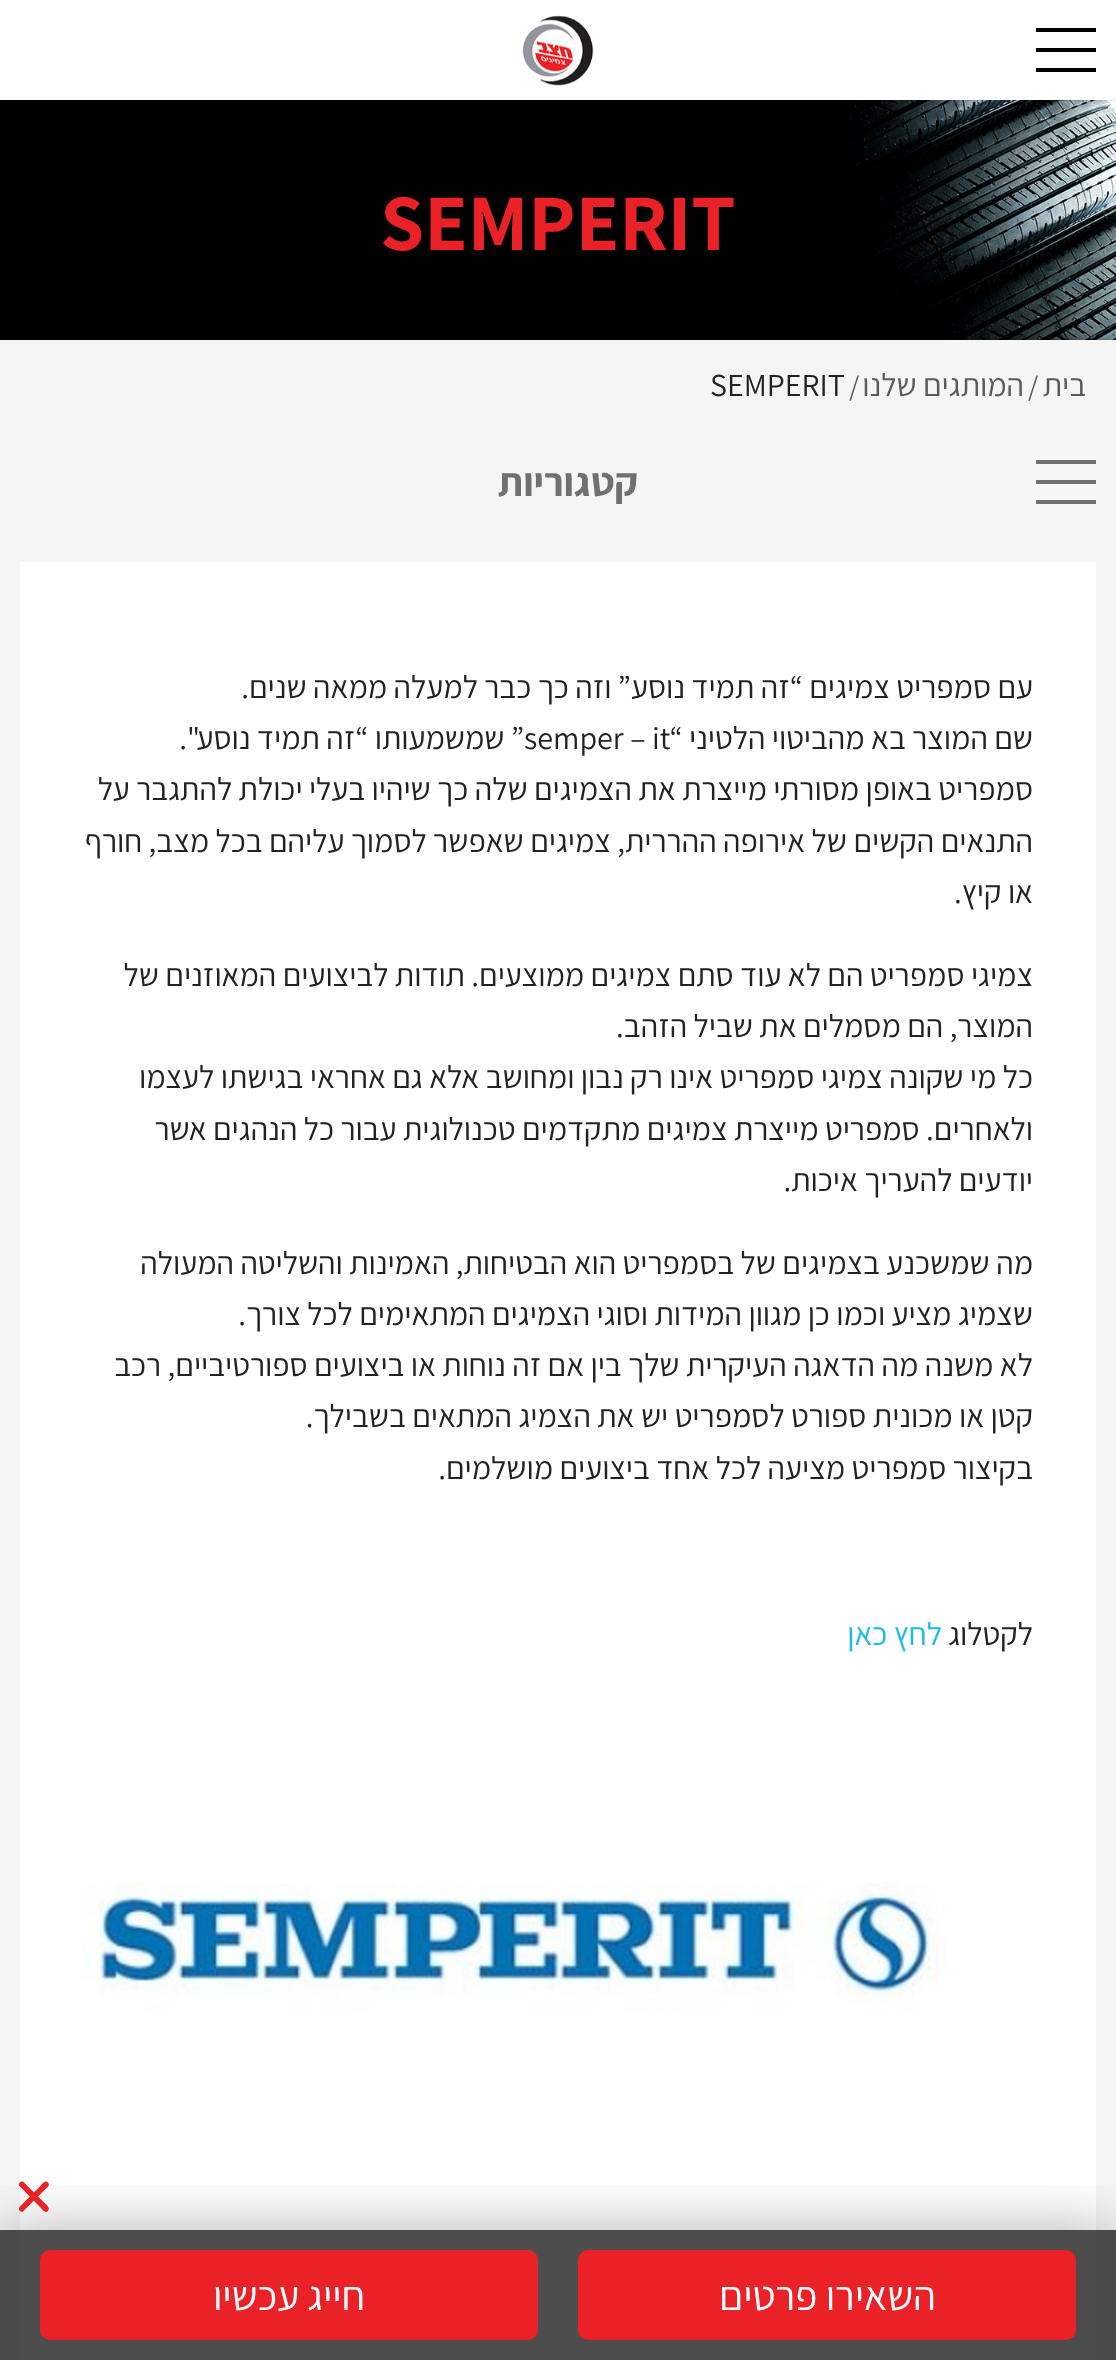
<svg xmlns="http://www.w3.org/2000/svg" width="1116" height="2360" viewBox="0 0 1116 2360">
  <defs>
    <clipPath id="clip1"><path d="M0 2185h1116v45H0z"/></clipPath>
  </defs>
  <rect width="100%" height="100%" fill="#f5f5f5"/>
  <path d="M0 2230h1116v130H0z" fill="#4a4a4a"/>
  <path d="M0 0h1116v100H0z" fill="#fff"/>
  <path d="M1036 68h60v4H1036z" fill="#000"/>
  <path d="M1036 48h60v4H1036z" fill="#000"/>
  <path d="M1036 28h60v4H1036z" fill="#000"/>
  <image x="522" y="15" width="72" height="71" href="img/1.png"/>
  <image x="0" y="100" width="1116" height="240" href="img/2.png"/>
  <path d="M1036 500h60v4H1036z" fill="#707070"/>
  <path d="M1036 480h60v4H1036z" fill="#707070"/>
  <path d="M1036 460h60v4H1036z" fill="#707070"/>
  <path d="M20 562h1076v1668H20z" fill="#fff"/>
  <path d="M20 2230h1076v130H20z" fill="#4d4d4d"/>
  <image x="82" y="1882" width="864" height="130" href="img/3.png"/>
  <g clip-path="url(#clip1)">
    <path d="M0 2230h1116v130H0z" fill="#0000004d" filter="blur(30px)"/>
  </g>
  <path d="M20 2206.5L40 2186.5C41.5 2185 45 2179.5 48 2182.5C51 2185.5 45.5 2189 44 2190.5L23 2211.5C20 2212.5 17.5 2209 20 2206.5Z" fill="#ea2227"/>
  <path d="M24 2182.5L44 2202.5C45.5 2204 51 2208 48 2211C45 2214 41.5 2208.5 40 2207L19 2185.5C18 2183 22 2180 24 2182.5Z" fill="#ea2227"/>
  <rect x="578" y="2250" width="498" height="90" rx="10" fill="#ea2227"/>
  <rect x="40" y="2250" width="498" height="90" rx="10" fill="#ea2227"/>
  <text x="380" y="250" font-family="Assistant" font-size="80" font-weight="bold" fill="#ea2227">SEMPERIT</text>
  <text x="1086" y="396" font-family="Assistant" font-size="32" direction="rtl" fill="#5a5a5a">בית</text>
  <text x="1028" y="396" font-family="Assistant" font-size="29" fill="#5a5a5a">/</text>
  <text x="1024" y="396" font-family="Assistant" font-size="32" direction="rtl" fill="#5a5a5a">המותגים שלנו</text>
  <text x="849" y="396" font-family="Assistant" font-size="29" fill="#5a5a5a">/</text>
  <text x="710" y="396" font-family="Assistant" font-size="32" fill="#222">SEMPERIT</text>
  <text x="638" y="496" font-family="Assistant" font-size="40" font-weight="bold" direction="rtl" fill="#707070">קטגוריות</text>
  <g font-family="Assistant" font-size="32" direction="rtl" fill="#222">
    <text x="1033" y="698">עם סמפריט צמיגים “זה תמיד נוסע” וזה כך כבר למעלה ממאה שנים.</text>
    <text x="1033" y="749">שם המוצר בא מהביטוי הלטיני “</text>
  </g>
  <text x="524" y="749" font-family="Assistant" font-size="32" fill="#222">semper – it</text>
  <g font-family="Assistant" font-size="32" direction="rtl" fill="#222">
    <text x="524" y="749">” שמשמעותו “זה תמיד נוסע".</text>
    <text x="1033" y="800">סמפריט באופן מסורתי מייצרת את הצמיגים שלה כך שיהיו בעלי יכולת להתגבר על</text>
    <text x="1033" y="852">התנאים הקשים של אירופה ההררית, צמיגים שאפשר לסמוך עליהם בכל מצב, חורף</text>
    <text x="1033" y="903">או קיץ.</text>
    <text x="1033" y="986">צמיגי סמפריט הם לא עוד סתם צמיגים ממוצעים. תודות לביצועים המאוזנים של</text>
    <text x="1033" y="1037">המוצר, הם מסמלים את שביל הזהב.</text>
    <text x="1033" y="1088">כל מי שקונה צמיגי סמפריט אינו רק נבון ומחושב אלא גם אחראי בגישתו לעצמו</text>
    <text x="1033" y="1140">ולאחרים. סמפריט מייצרת צמיגים מתקדמים טכנולוגית עבור כל הנהגים אשר</text>
    <text x="1033" y="1191">יודעים להעריך איכות.</text>
    <text x="1033" y="1274">מה שמשכנע בצמיגים של בסמפריט הוא הבטיחות, האמינות והשליטה המעולה</text>
    <text x="1033" y="1325">שצמיג מציע וכמו כן מגוון המידות וסוגי הצמיגים המתאימים לכל צורך.</text>
    <text x="1033" y="1376">לא משנה מה הדאגה העיקרית שלך בין אם זה נוחות או ביצועים ספורטיביים, רכב</text>
    <text x="1033" y="1427">קטן או מכונית ספורט לסמפריט יש את הצמיג המתאים בשבילך.</text>
    <text x="1033" y="1479">בקיצור סמפריט מציעה לכל אחד ביצועים מושלמים.</text>
    <text x="1033" y="1645">לקטלוג</text>
  </g>
  <text x="942" y="1645" font-family="Assistant" font-size="32" direction="rtl" fill="#1bbde8">לחץ כאן</text>
  <g font-family="Assistant" font-size="41.5" direction="rtl" fill="#fff">
    <text x="936" y="2310">השאירו פרטים</text>
    <text x="365" y="2310">חייג עכשיו</text>
  </g>
</svg>
